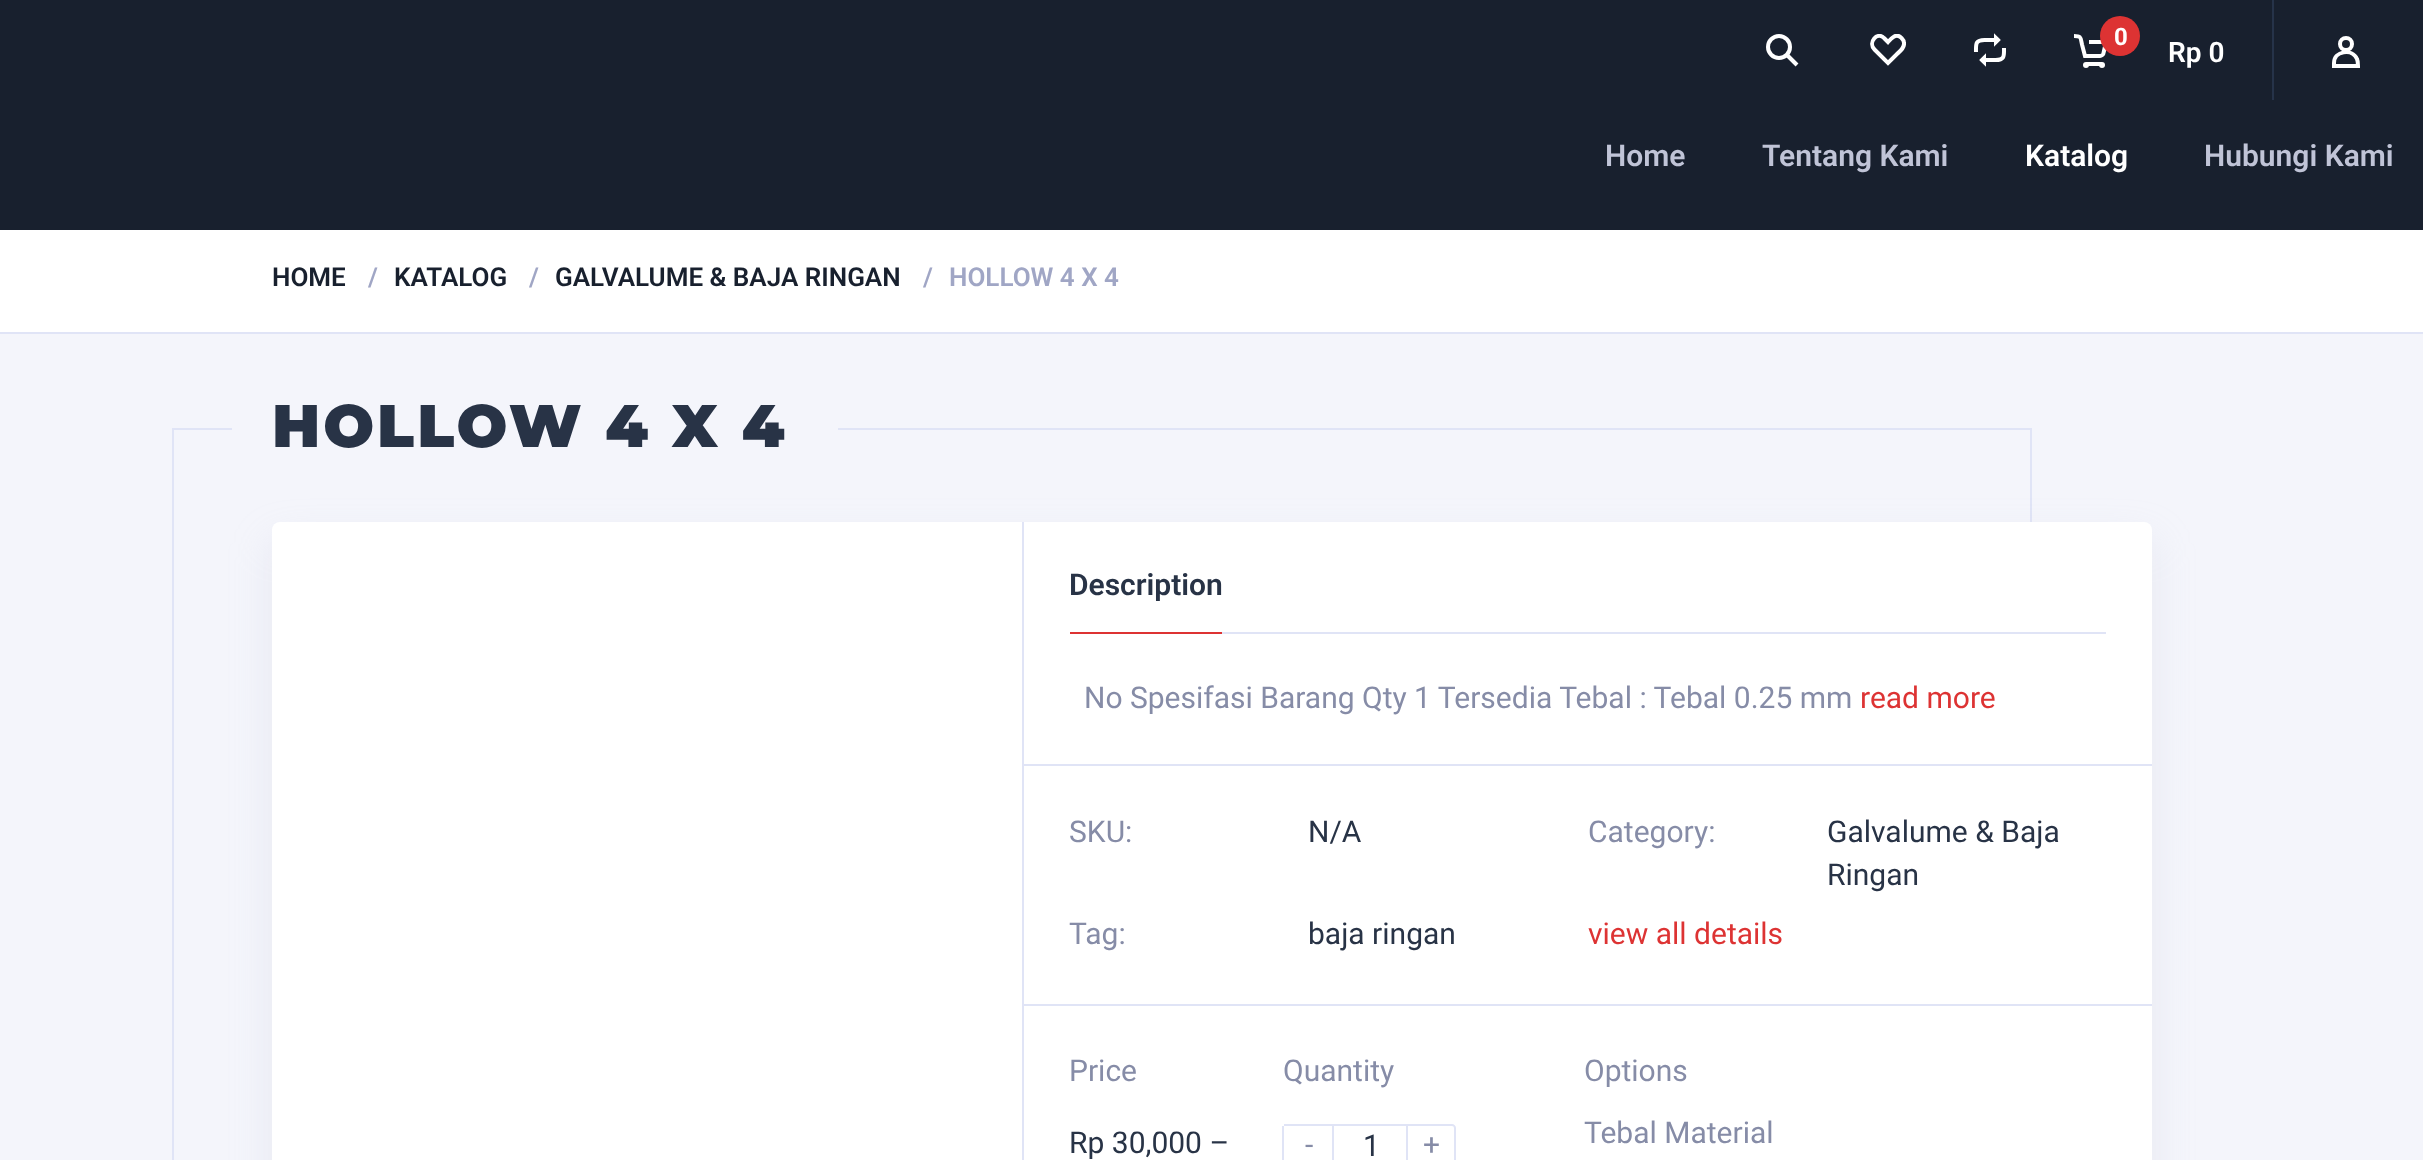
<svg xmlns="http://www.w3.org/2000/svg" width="2423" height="1160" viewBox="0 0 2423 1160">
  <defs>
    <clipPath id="clip1"><path d="M1870 34h36v32H1870z"/></clipPath>
  </defs>
  <rect width="100%" height="100%" fill="#f4f5fb"/>
  <path d="M0 0h2423v230H0z" fill="#18202e"/>
  <path d="M1786 54L1797 65" fill="none" stroke="#fff" stroke-width="4"/>
  <circle cx="1779" cy="47" r="11" fill="none" stroke="#fff" stroke-width="4"/>
  <g clip-path="url(#clip1)">
    <path d="M1901.5 38C1903 39.5 1904 41 1904 43C1904.5 48 1900.5 51 1897 54L1888 63L1874.5 49.5C1867.5 42.5 1877.5 31 1884 38L1888 42C1891.5 38 1896.5 32.5 1901.5 38Z" fill="none" stroke="#fff" stroke-width="4"/>
  </g>
  <path d="M1976 52C1976 44.5 1975 40 1984.5 40H1998M1998 40L1996 38V42ZM2004 48C2004 55.5 2005 60 1995.5 60H1982M1982 60L1984 62V58Z" fill="none" stroke="#fff" stroke-width="4"/>
  <path d="M2074 36C2081.5 36 2080.5 37.5 2082 44.5L2085 56H2100C2101.5 56 2103.5 54.5 2103.5 53L2106 42H2089" fill="none" stroke="#fff" stroke-width="4"/>
  <circle cx="2086" cy="65" r="3" fill="#fff"/>
  <circle cx="2102" cy="65" r="3" fill="#fff"/>
  <path d="M2086 62h16v4H2086z" fill="#fff"/>
  <circle cx="2120" cy="36" r="20" fill="#d33"/>
  <path d="M2272 0h2v100H2272z" fill="#263349"/>
  <path d="M2334 63C2334 51 2352 48 2357 59C2358 61 2358 63.5 2358 66H2334Z" fill="none" stroke="#fff" stroke-width="4"/>
  <circle cx="2346" cy="44" r="6" fill="none" stroke="#fff" stroke-width="4"/>
  <path d="M0 230h2423v102H0z" fill="#fff"/>
  <path d="M0 332h2423v2H0z" fill="#e0e4f6"/>
  <path d="M172 428h2v732H172z" fill="#e0e4f6"/>
  <path d="M172 428h60v2H172z" fill="#e0e4f6"/>
  <path d="M838 428h1194v2H838z" fill="#e0e4f6"/>
  <path d="M2030 428h2v94H2030z" fill="#e0e4f6"/>
  <rect x="272" y="542" width="1880" height="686" rx="8" fill="#c0c4d740" filter="blur(20px)"/>
  <rect x="272" y="522" width="1880" height="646" rx="8" fill="#fff"/>
  <path d="M1022 522h2v638H1022z" fill="#e0e4f6"/>
  <path d="M1024 764h1128v2H1024z" fill="#e0e4f6"/>
  <path d="M1222 632h884v2H1222z" fill="#e0e4f6"/>
  <path d="M1070 632h152v2H1070z" fill="#d33"/>
  <path d="M1024 1004h1128v2H1024z" fill="#e0e4f6"/>
  <path d="M1284 1124h48v2H1284z" fill="#e0e4f6"/>
  <path d="M1282 1126h2v34H1282z" fill="#e0e4f6"/>
  <path d="M1333 1125h106v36H1333z" fill="none" stroke="#e0e4f6" stroke-width="2"/>
  <path d="M1407 1125H1452C1453.5 1125 1455 1126.5 1455 1128V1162C1455 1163.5 1453.5 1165 1452 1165H1407Z" fill="#fff" stroke="#e0e4f6" stroke-width="2"/>
  <text x="2114" y="45" font-family="Roboto" font-size="24" font-weight="bold" fill="#fff">0</text>
  <text x="2168" y="62" font-family="Roboto" font-size="28" font-weight="600" fill="#fff">Rp 0</text>
  <g font-family="Roboto" font-size="30" font-weight="600" fill="#c0c4d7">
    <text x="1605" y="166">Home</text>
    <text x="1762" y="166">Tentang Kami</text>
  </g>
  <text x="2025" y="166" font-family="Roboto" font-size="30" font-weight="600" fill="#fff">Katalog</text>
  <text x="2204" y="166" font-family="Roboto" font-size="30" font-weight="600" fill="#c0c4d7">Hubungi Kami</text>
  <text x="272" y="286" font-family="Roboto" font-size="26" font-weight="600" fill="#18202e">HOME</text>
  <text x="368" y="286" font-family="Roboto" font-size="26" font-weight="600" fill="#a0a6c5">/</text>
  <text x="394" y="286" font-family="Roboto" font-size="26" font-weight="600" fill="#18202e">KATALOG</text>
  <text x="529" y="286" font-family="Roboto" font-size="26" font-weight="600" fill="#a0a6c5">/</text>
  <text x="555" y="286" font-family="Roboto" font-size="26" font-weight="600" fill="#18202e">GALVALUME &amp; BAJA RINGAN</text>
  <g font-family="Roboto" font-size="26" font-weight="600" fill="#a0a6c5">
    <text x="923" y="286">/</text>
    <text x="949" y="286">HOLLOW 4 X 4</text>
  </g>
  <text x="272" y="447" font-family="Montserrat" font-size="60" font-weight="900" letter-spacing="3" fill="#283346">HOLLOW 4 X 4</text>
  <text x="1069" y="595" font-family="Roboto" font-size="30" font-weight="600" fill="#283346">Description</text>
  <text x="1084" y="708" font-family="Roboto" font-size="30" fill="#868ca7">No Spesifasi Barang Qty 1 Tersedia Tebal : Tebal 0.25 mm</text>
  <text x="1860" y="708" font-family="Roboto" font-size="30" fill="#d33">read more</text>
  <text x="1069" y="842" font-family="Roboto" font-size="30" fill="#868ca7">SKU:</text>
  <text x="1308" y="842" font-family="Roboto" font-size="30" fill="#283346">N/A</text>
  <text x="1588" y="842" font-family="Roboto" font-size="30" fill="#868ca7">Category:</text>
  <g font-family="Roboto" font-size="30" fill="#283346">
    <text x="1827" y="842">Galvalume &amp; Baja</text>
    <text x="1827" y="885">Ringan</text>
  </g>
  <text x="1069" y="944" font-family="Roboto" font-size="30" fill="#868ca7">Tag:</text>
  <text x="1308" y="944" font-family="Roboto" font-size="30" fill="#283346">baja ringan</text>
  <text x="1588" y="944" font-family="Roboto" font-size="30" fill="#d33">view all details</text>
  <text x="1069" y="1081" font-family="Roboto" font-size="30" fill="#868ca7">Price</text>
  <text x="1069" y="1153" font-family="Roboto" font-size="30" fill="#283346">Rp 30,000 –</text>
  <g font-family="Roboto" font-size="30" fill="#868ca7">
    <text x="1283" y="1081">Quantity</text>
    <text x="1305" y="1155">-</text>
  </g>
  <text x="1363" y="1156" font-family="Roboto" font-size="30" fill="#283346">1</text>
  <g font-family="Roboto" font-size="30" fill="#868ca7">
    <text x="1423" y="1155">+</text>
    <text x="1584" y="1081">Options</text>
    <text x="1584" y="1143">Tebal Material</text>
  </g>
</svg>
